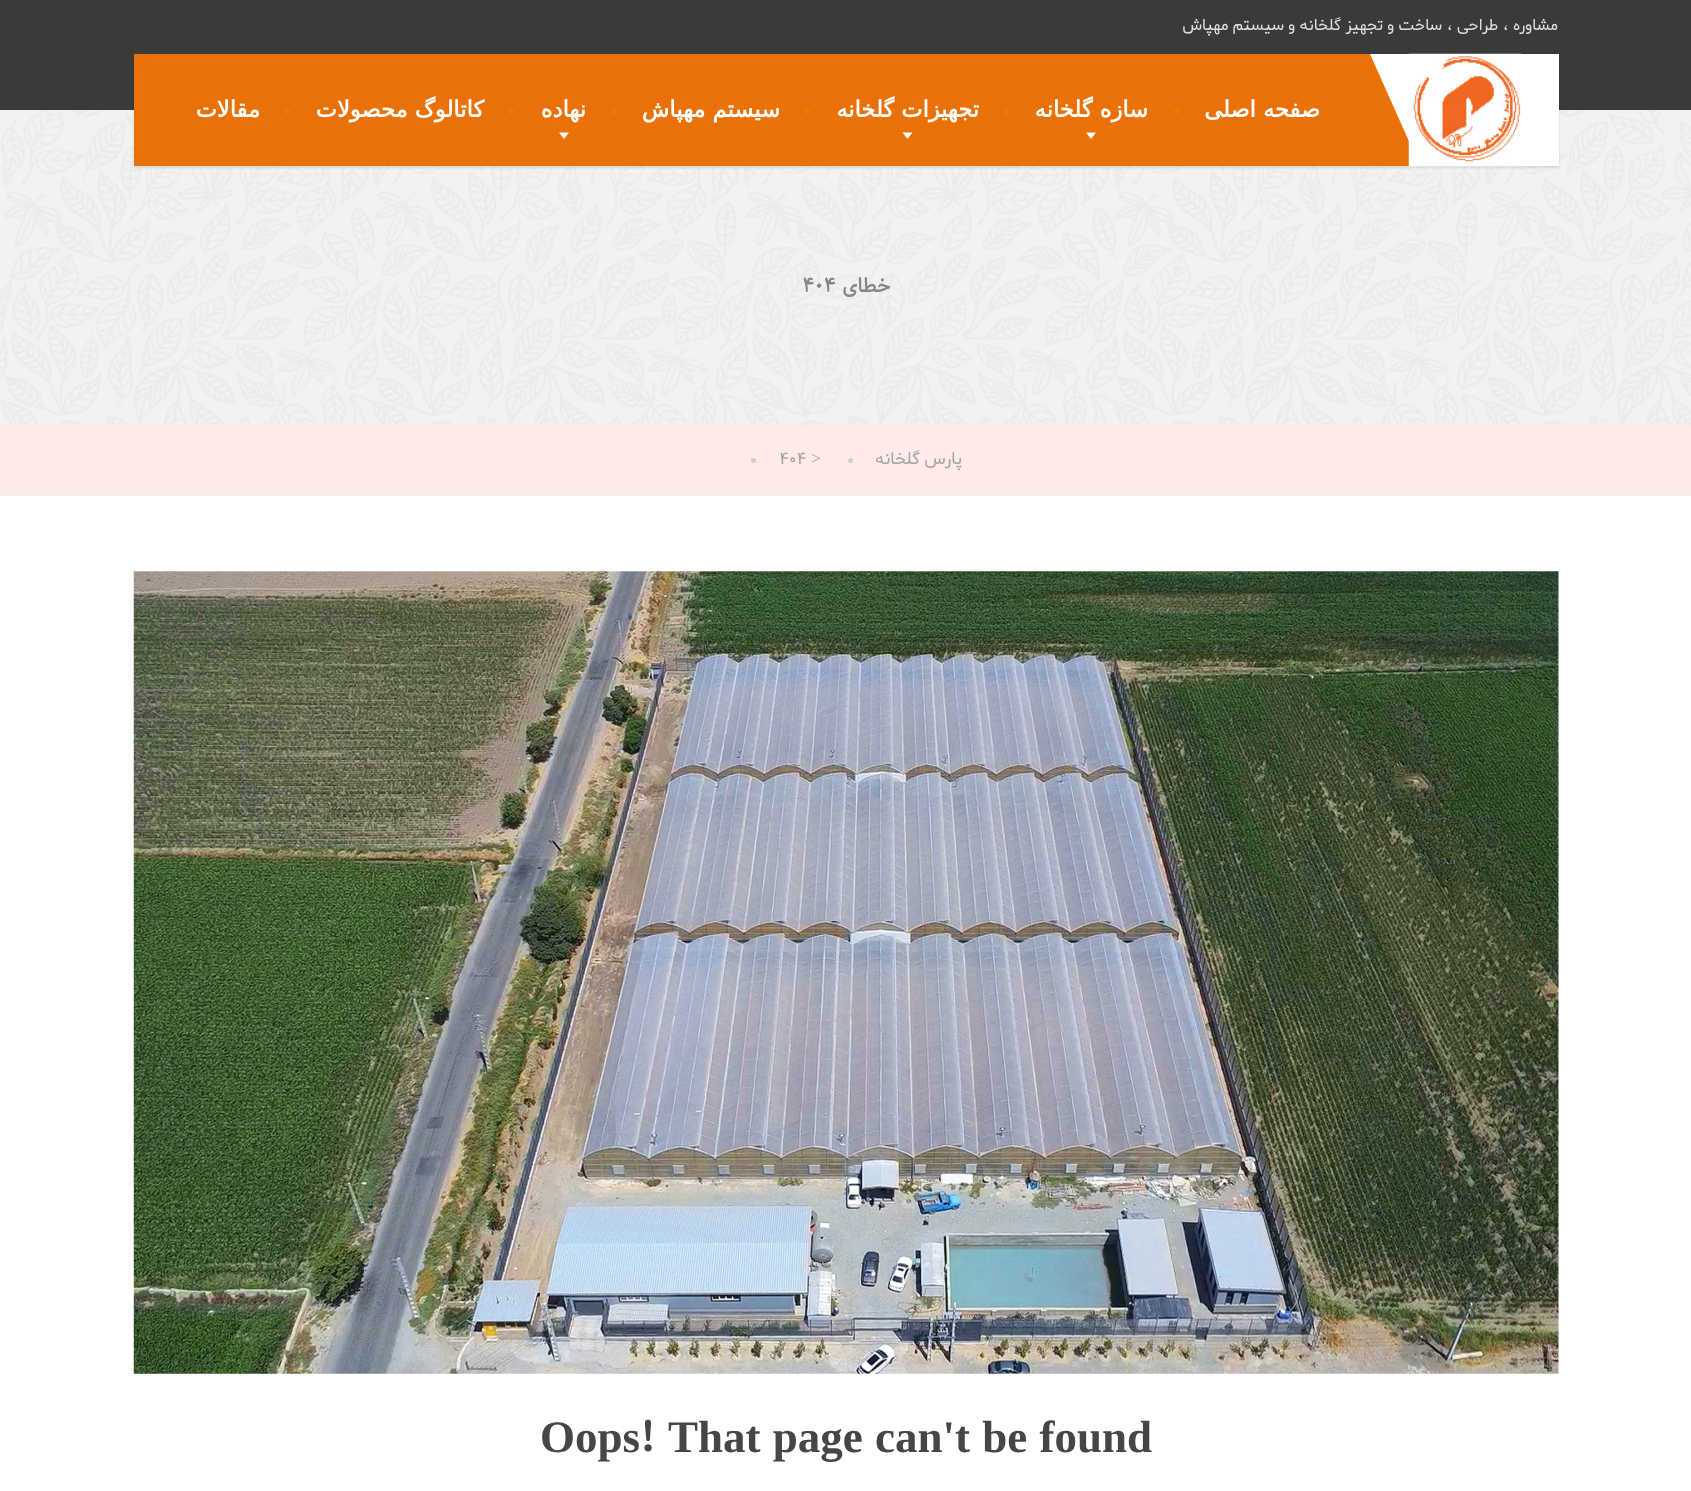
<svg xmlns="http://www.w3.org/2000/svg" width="1691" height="1491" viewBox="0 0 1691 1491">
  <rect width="100%" height="100%" fill="#fff"/>
  <path d="M0 0h1691v110H0z" fill="#3a3a3a"/>
  <image x="0" y="110" width="1691" height="315" href="img/2.png"/>
  <path d="M134 55h1425v113H134z" fill="#0000001a" filter="blur(1px)"/>
  <path d="M1521 54h38v112H1521z" fill="#fff"/>
  <path d="M134 54h1275v112H134z" fill="#ea7107"/>
  <path d="M1420 54V166L1370 54Z" fill="#fff"/>
  <image x="1408" y="53" width="114" height="114" href="img/1.png"/>
  <circle cx="1176.5" cy="111.5" r="2.5" fill="#dd8500"/>
  <path d="M1086 132.5H1096L1091 139Z" fill="#fff"/>
  <circle cx="1006.5" cy="111.5" r="2.5" fill="#dd8500"/>
  <path d="M902.5 132.5H912.5L907.5 139Z" fill="#fff"/>
  <circle cx="807.5" cy="111.5" r="2.5" fill="#dd8500"/>
  <circle cx="613.5" cy="111.5" r="2.5" fill="#dd8500"/>
  <path d="M559 132.5H569L564 139Z" fill="#fff"/>
  <circle cx="511.5" cy="111.5" r="2.5" fill="#dd8500"/>
  <circle cx="287.5" cy="111.5" r="2.5" fill="#dd8500"/>
  <path d="M0 425h1691v70H0z" fill="#ffeaea"/>
  <path d="M0 495h1691v1H0z" fill="#f0f0f0"/>
  <circle cx="850.5" cy="460.5" r="2.5" fill="#cecece"/>
  <circle cx="753.5" cy="460.5" r="2.5" fill="#cecece"/>
  <image x="133" y="571" width="1426" height="803" href="img/3.png"/>
  <text x="1558" y="30" font-family="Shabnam" font-size="16.25" direction="rtl" fill="#ddd">مشاوره ، طراحی ، ساخت و تجهیز گلخانه و سیستم مهپاش</text>
  <g font-family="DejaVu Sans" font-size="22.5" font-weight="bold" direction="rtl" fill="#fff">
    <text x="1320" y="117">صفحه اصلی</text>
    <text x="1148" y="117">سازه گلخانه</text>
    <text x="979" y="117">تجهیزات گلخانه</text>
    <text x="780" y="117">سیستم مهپاش</text>
    <text x="586" y="117">نهاده</text>
    <text x="484" y="117">کاتالوگ محصولات</text>
    <text x="260" y="117">مقالات</text>
  </g>
  <text x="890" y="292" font-family="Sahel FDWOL" font-size="21" font-weight="bold" direction="rtl" fill="#878787">خطای</text>
  <text x="802" y="292" font-family="Sahel FDWOL" font-size="21" font-weight="bold" fill="#878787">404</text>
  <text x="962" y="464" font-family="Shabnam" font-size="17.5" direction="rtl" fill="#a5a5a5">پارس گلخانه</text>
  <text x="811" y="464" font-family="Liberation Serif" font-size="17.5" fill="#a5a5a5">&gt;</text>
  <text x="779" y="464" font-family="Shabnam" font-size="17.5" fill="#a5a5a5">404</text>
  <text x="668" y="1452" word-spacing="1" font-family="Liberation Serif" font-size="45" font-weight="bold" fill="#464646">That page can't be found</text>
  <text x="640" y="1452" font-family="Sahel FDWOL" font-size="45" font-weight="bold" fill="#464646">!</text>
  <text x="540" y="1452" font-family="Liberation Serif" font-size="45" font-weight="bold" fill="#464646">Oops</text>
</svg>
